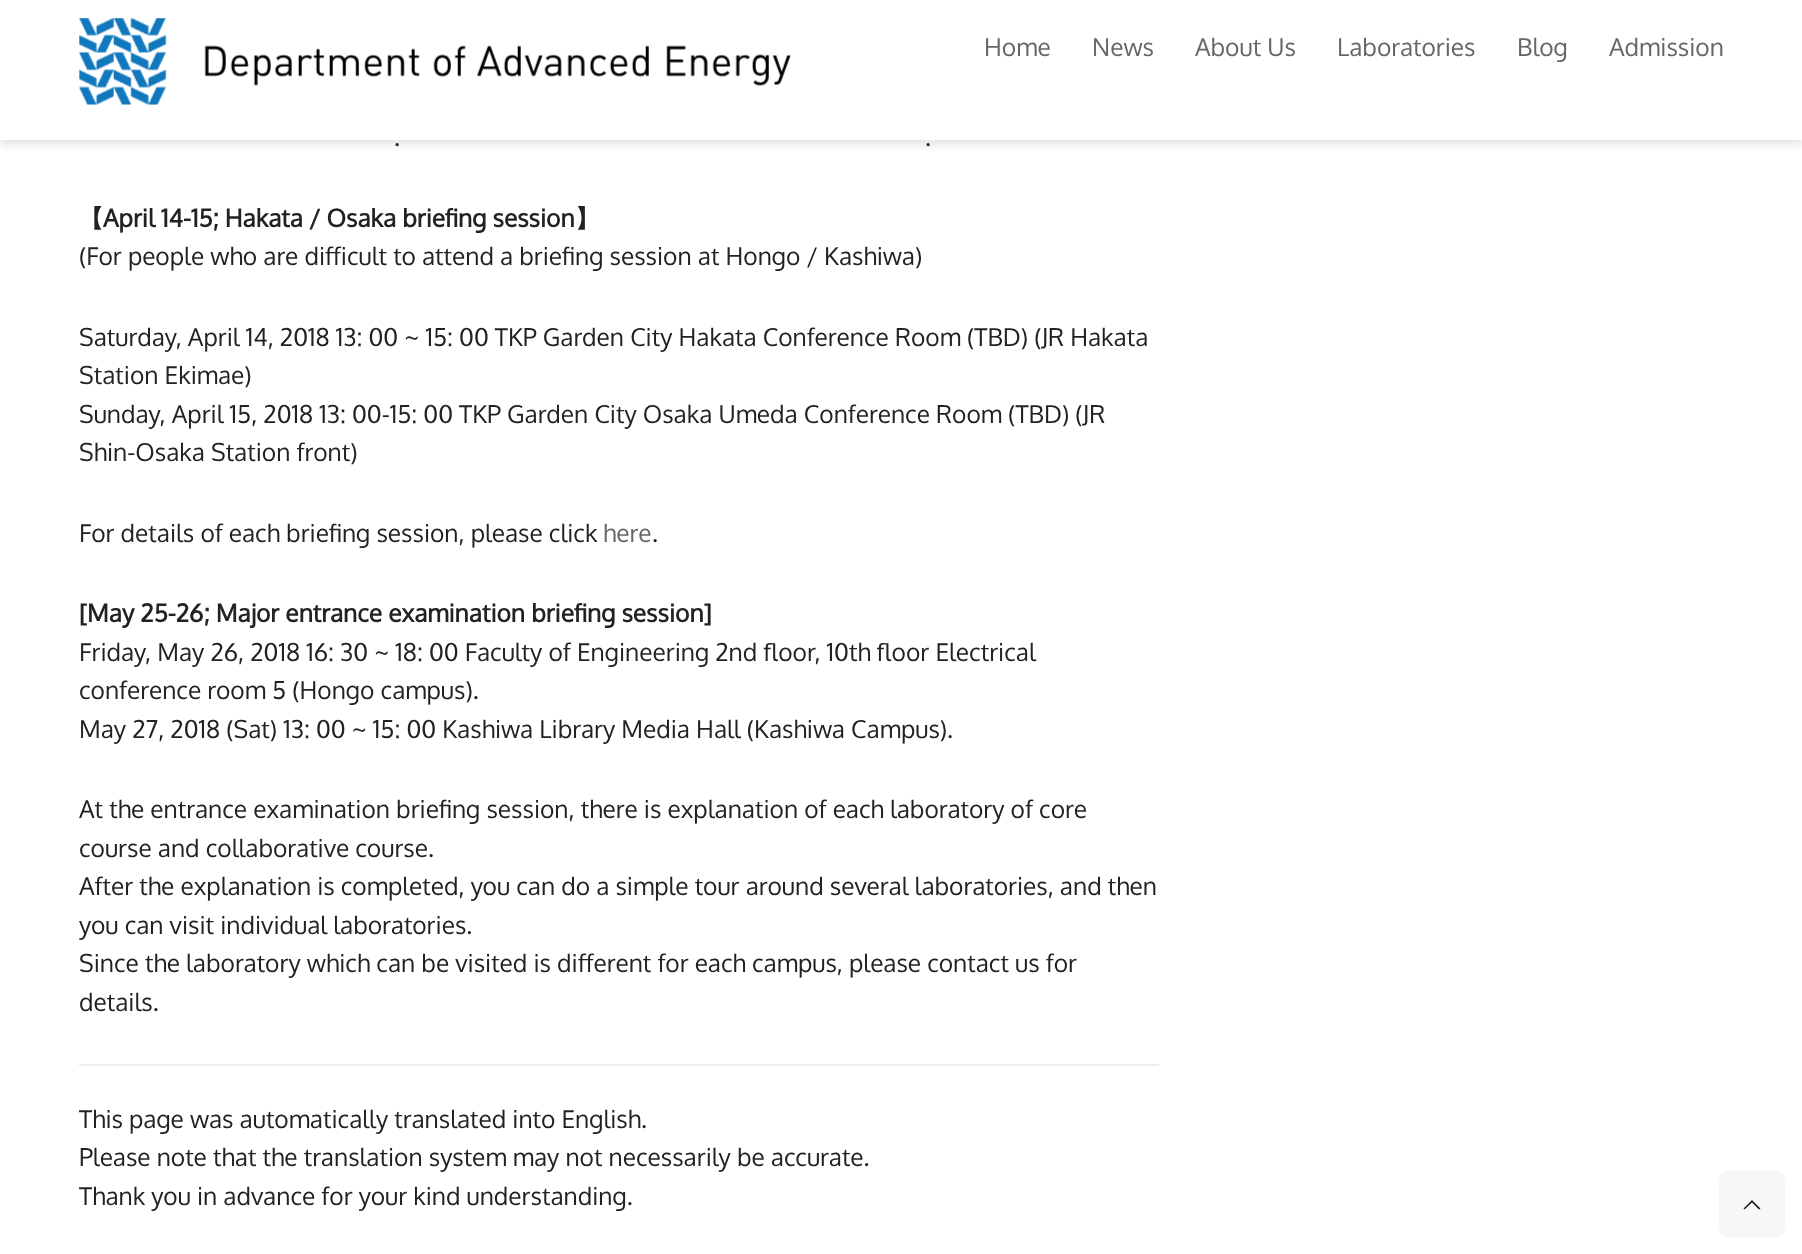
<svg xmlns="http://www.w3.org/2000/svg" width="1802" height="1254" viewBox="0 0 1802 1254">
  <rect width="100%" height="100%" fill="#fff"/>
  <path d="M0 5h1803v140H0z" fill="#0000001a" filter="blur(4.5px)"/>
  <path d="M0 0h1802v140H0z" fill="#fff"/>
  <image x="79" y="18" width="712" height="87" href="img/1.png"/>
  <path d="M79 1064h1080v2H79z" fill="#eee"/>
  <rect x="1719" y="1171" width="66" height="66" rx="7" fill="#f7f7f7"/>
  <path d="M1759 1209.5L1752 1202.5L1744.5 1209.5L1743.5 1208.5L1752 1200L1760.5 1208.5Z" fill="#222"/>
  <g font-family="Oxygen" font-size="24.5" fill="#666">
    <text x="984" y="56">Home</text>
    <text x="1092" y="56">News</text>
    <text x="1195" y="56">About Us</text>
    <text x="1337" y="56">Laboratories</text>
    <text x="1517" y="56">Blog</text>
    <text x="1609" y="56">Admission</text>
  </g>
  <g font-family="Oxygen" font-size="24.5" fill="#222">
    <text x="394" y="146">.</text>
    <text x="925" y="146">.</text>
  </g>
  <text x="79" y="227" font-family="WenQuanYi Zen Hei" font-size="24.5" font-weight="bold" fill="#222">【</text>
  <text x="103" y="227" font-family="Oxygen" font-size="24.5" font-weight="bold" fill="#222">April 14-15; Hakata / Osaka briefing session</text>
  <text x="575" y="227" font-family="WenQuanYi Zen Hei" font-size="24.5" font-weight="bold" fill="#222">】</text>
  <g font-family="Oxygen" font-size="24.5" fill="#222">
    <text x="79" y="265">(For people who are difficult to attend a briefing session at Hongo / Kashiwa)</text>
    <text x="79" y="346">Saturday, April 14, 2018 13: 00 ~ 15: 00 TKP Garden City Hakata Conference Room (TBD) (JR Hakata</text>
    <text x="79" y="384">Station Ekimae)</text>
    <text x="79" y="423">Sunday, April 15, 2018 13: 00-15: 00 TKP Garden City Osaka Umeda Conference Room (TBD) (JR</text>
    <text x="79" y="461">Shin-Osaka Station front)</text>
    <text x="79" y="542">For details of each briefing session, please click</text>
  </g>
  <text x="603" y="542" font-family="Oxygen" font-size="24.5" fill="#666">here</text>
  <text x="652" y="542" font-family="Oxygen" font-size="24.5" fill="#222">.</text>
  <text x="79" y="622" font-family="Oxygen" font-size="24.5" font-weight="bold" fill="#222">[May 25-26; Major entrance examination briefing session]</text>
  <g font-family="Oxygen" font-size="24.5" fill="#222">
    <text x="79" y="661">Friday, May 26, 2018 16: 30 ~ 18: 00 Faculty of Engineering 2nd floor, 10th floor Electrical</text>
    <text x="79" y="699">conference room 5 (Hongo campus).</text>
    <text x="79" y="738">May 27, 2018 (Sat) 13: 00 ~ 15: 00 Kashiwa Library Media Hall (Kashiwa Campus).</text>
    <text x="79" y="818">At the entrance examination briefing session, there is explanation of each laboratory of core</text>
    <text x="79" y="857">course and collaborative course.</text>
    <text x="79" y="895">After the explanation is completed, you can do a simple tour around several laboratories, and then</text>
    <text x="79" y="934">you can visit individual laboratories.</text>
    <text x="79" y="972">Since the laboratory which can be visited is different for each campus, please contact us for</text>
    <text x="79" y="1011">details.</text>
    <text x="79" y="1128">This page was automatically translated into English.</text>
    <text x="79" y="1166">Please note that the translation system may not necessarily be accurate.</text>
    <text x="79" y="1205">Thank you in advance for your kind understanding.</text>
  </g>
</svg>
